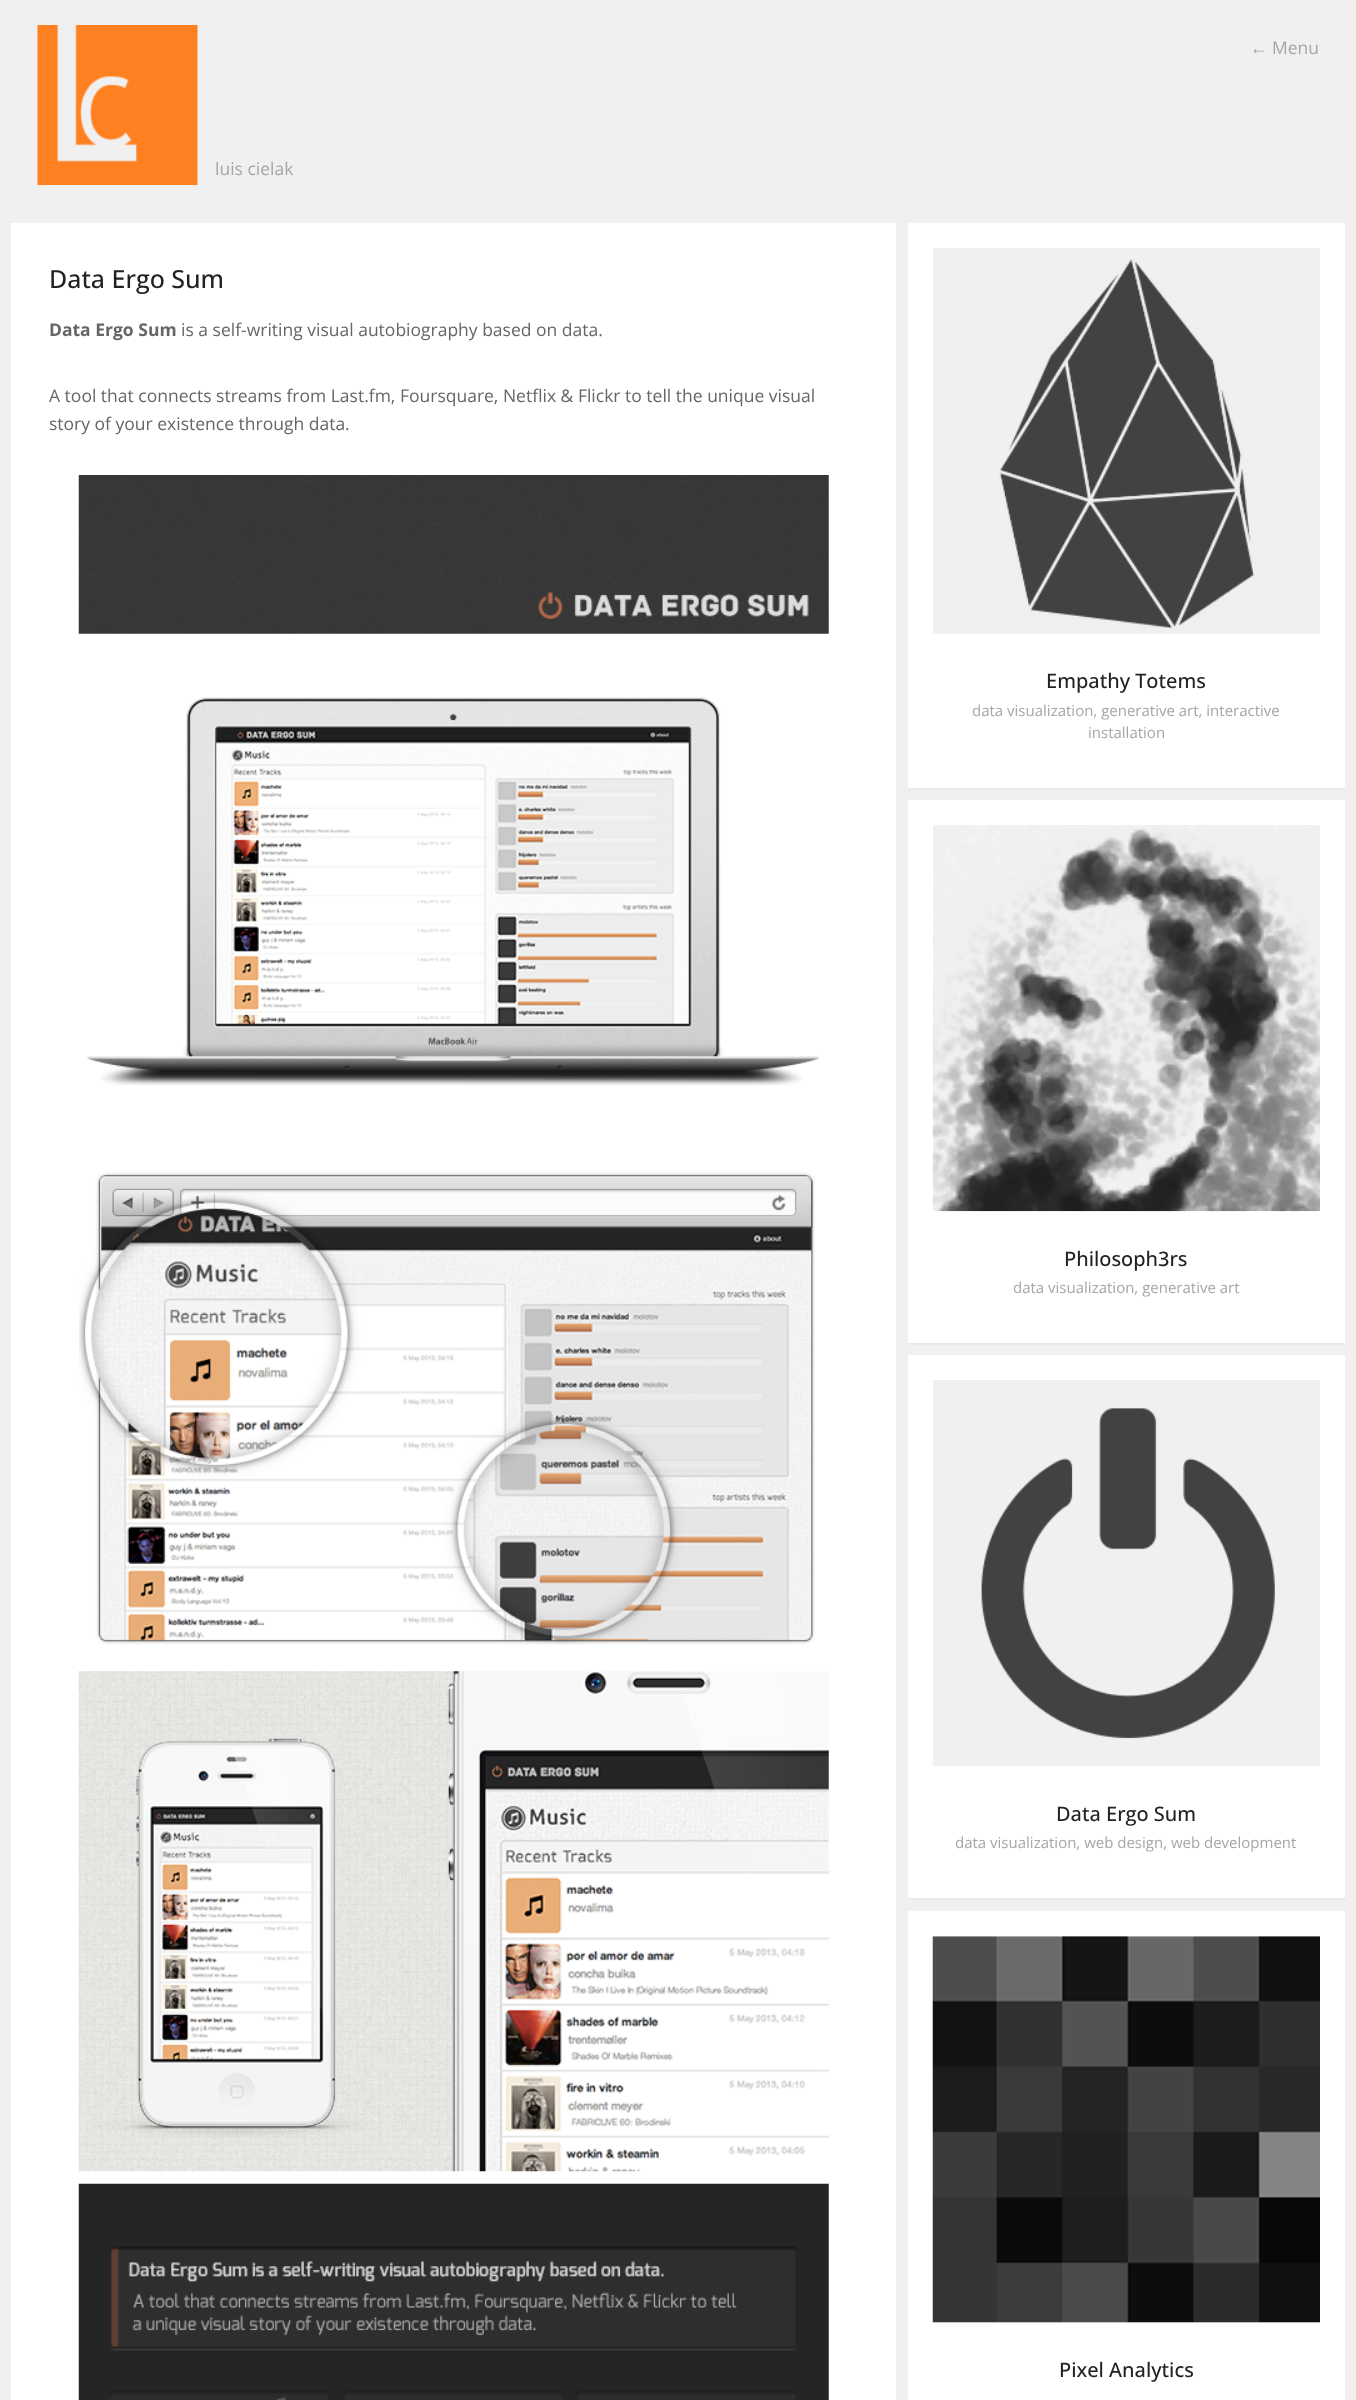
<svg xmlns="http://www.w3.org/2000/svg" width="1356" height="2400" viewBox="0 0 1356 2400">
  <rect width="100%" height="100%" fill="#f0f0f0"/>
  <image x="37" y="25" width="161" height="160" href="img/1.png"/>
  <path d="M11 223h885v2177H11z" fill="#fff"/>
  <image x="78" y="475" width="751" height="159" href="img/2.png"/>
  <image x="87" y="697" width="732" height="389" href="img/3.png"/>
  <image x="79" y="1172" width="736" height="473" href="img/4.png"/>
  <image x="78" y="1671" width="751" height="501" href="img/5.png"/>
  <image x="78" y="2183" width="751" height="217" href="img/6.png"/>
  <path d="M908 788h437v2H908z" fill="#e9e9e9"/>
  <path d="M908 223h437v565H908z" fill="#fff"/>
  <path d="M933 248h387v386H933z" fill="#f0f0f0"/>
  <image x="999" y="259" width="256" height="370" href="img/7.png"/>
  <path d="M908 1343h437v2H908z" fill="#e9e9e9"/>
  <path d="M908 800h437v543H908z" fill="#fff"/>
  <path d="M933 825h387v386H933z" fill="#f0f0f0"/>
  <image x="932" y="825" width="388" height="387" href="img/8.png"/>
  <path d="M908 1898h437v2H908z" fill="#e9e9e9"/>
  <path d="M908 1355h437v543H908z" fill="#fff"/>
  <path d="M933 1380h387v386H933z" fill="#f0f0f0"/>
  <image x="981" y="1408" width="294" height="331" href="img/9.png"/>
  <path d="M908 1911h437v489H908z" fill="#fff"/>
  <path d="M933 1936h387v387H933z" fill="#f0f0f0"/>
  <image x="932" y="1936" width="388" height="387" href="img/10.png"/>
  <text x="1250" y="54" font-family="Liberation Sans" font-size="17.5" fill="#a6a6a6">←</text>
  <g font-family="Open Sans" font-size="17.5" fill="#a6a6a6">
    <text x="1272" y="54">Menu</text>
    <text x="215" y="175">luis cielak</text>
  </g>
  <text x="49" y="288" font-family="Open Sans" font-size="25" font-weight="500" fill="#222">Data Ergo Sum</text>
  <text x="49" y="336" font-family="Open Sans" font-size="17.5" font-weight="bold" fill="#666">Data Ergo Sum</text>
  <g font-family="Open Sans" font-size="17.5" fill="#666">
    <text x="181" y="336">is a self-writing visual autobiography based on data.</text>
    <text x="49" y="402">A tool that connects streams from Last.fm, Foursquare, Netflix &amp; Flickr to tell the unique visual</text>
    <text x="49" y="430">story of your existence through data.</text>
  </g>
  <text x="1046" y="688" font-family="Open Sans" font-size="20" font-weight="500" fill="#222">Empathy Totems</text>
  <g font-family="Open Sans" font-size="15" fill="#a6a6a6">
    <text x="972" y="716">data visualization, generative art, interactive</text>
    <text x="1088" y="738">installation</text>
  </g>
  <text x="1064" y="1266" font-family="Open Sans" font-size="20" font-weight="500" fill="#222">Philosoph3rs</text>
  <text x="1013" y="1293" font-family="Open Sans" font-size="15" fill="#a6a6a6">data visualization, generative art</text>
  <text x="1056" y="1821" font-family="Open Sans" font-size="20" font-weight="500" fill="#222">Data Ergo Sum</text>
  <text x="955" y="1848" font-family="Open Sans" font-size="15" fill="#a6a6a6">data visualization, web design, web development</text>
  <text x="1059" y="2377" font-family="Open Sans" font-size="20" font-weight="500" fill="#222">Pixel Analytics</text>
</svg>
